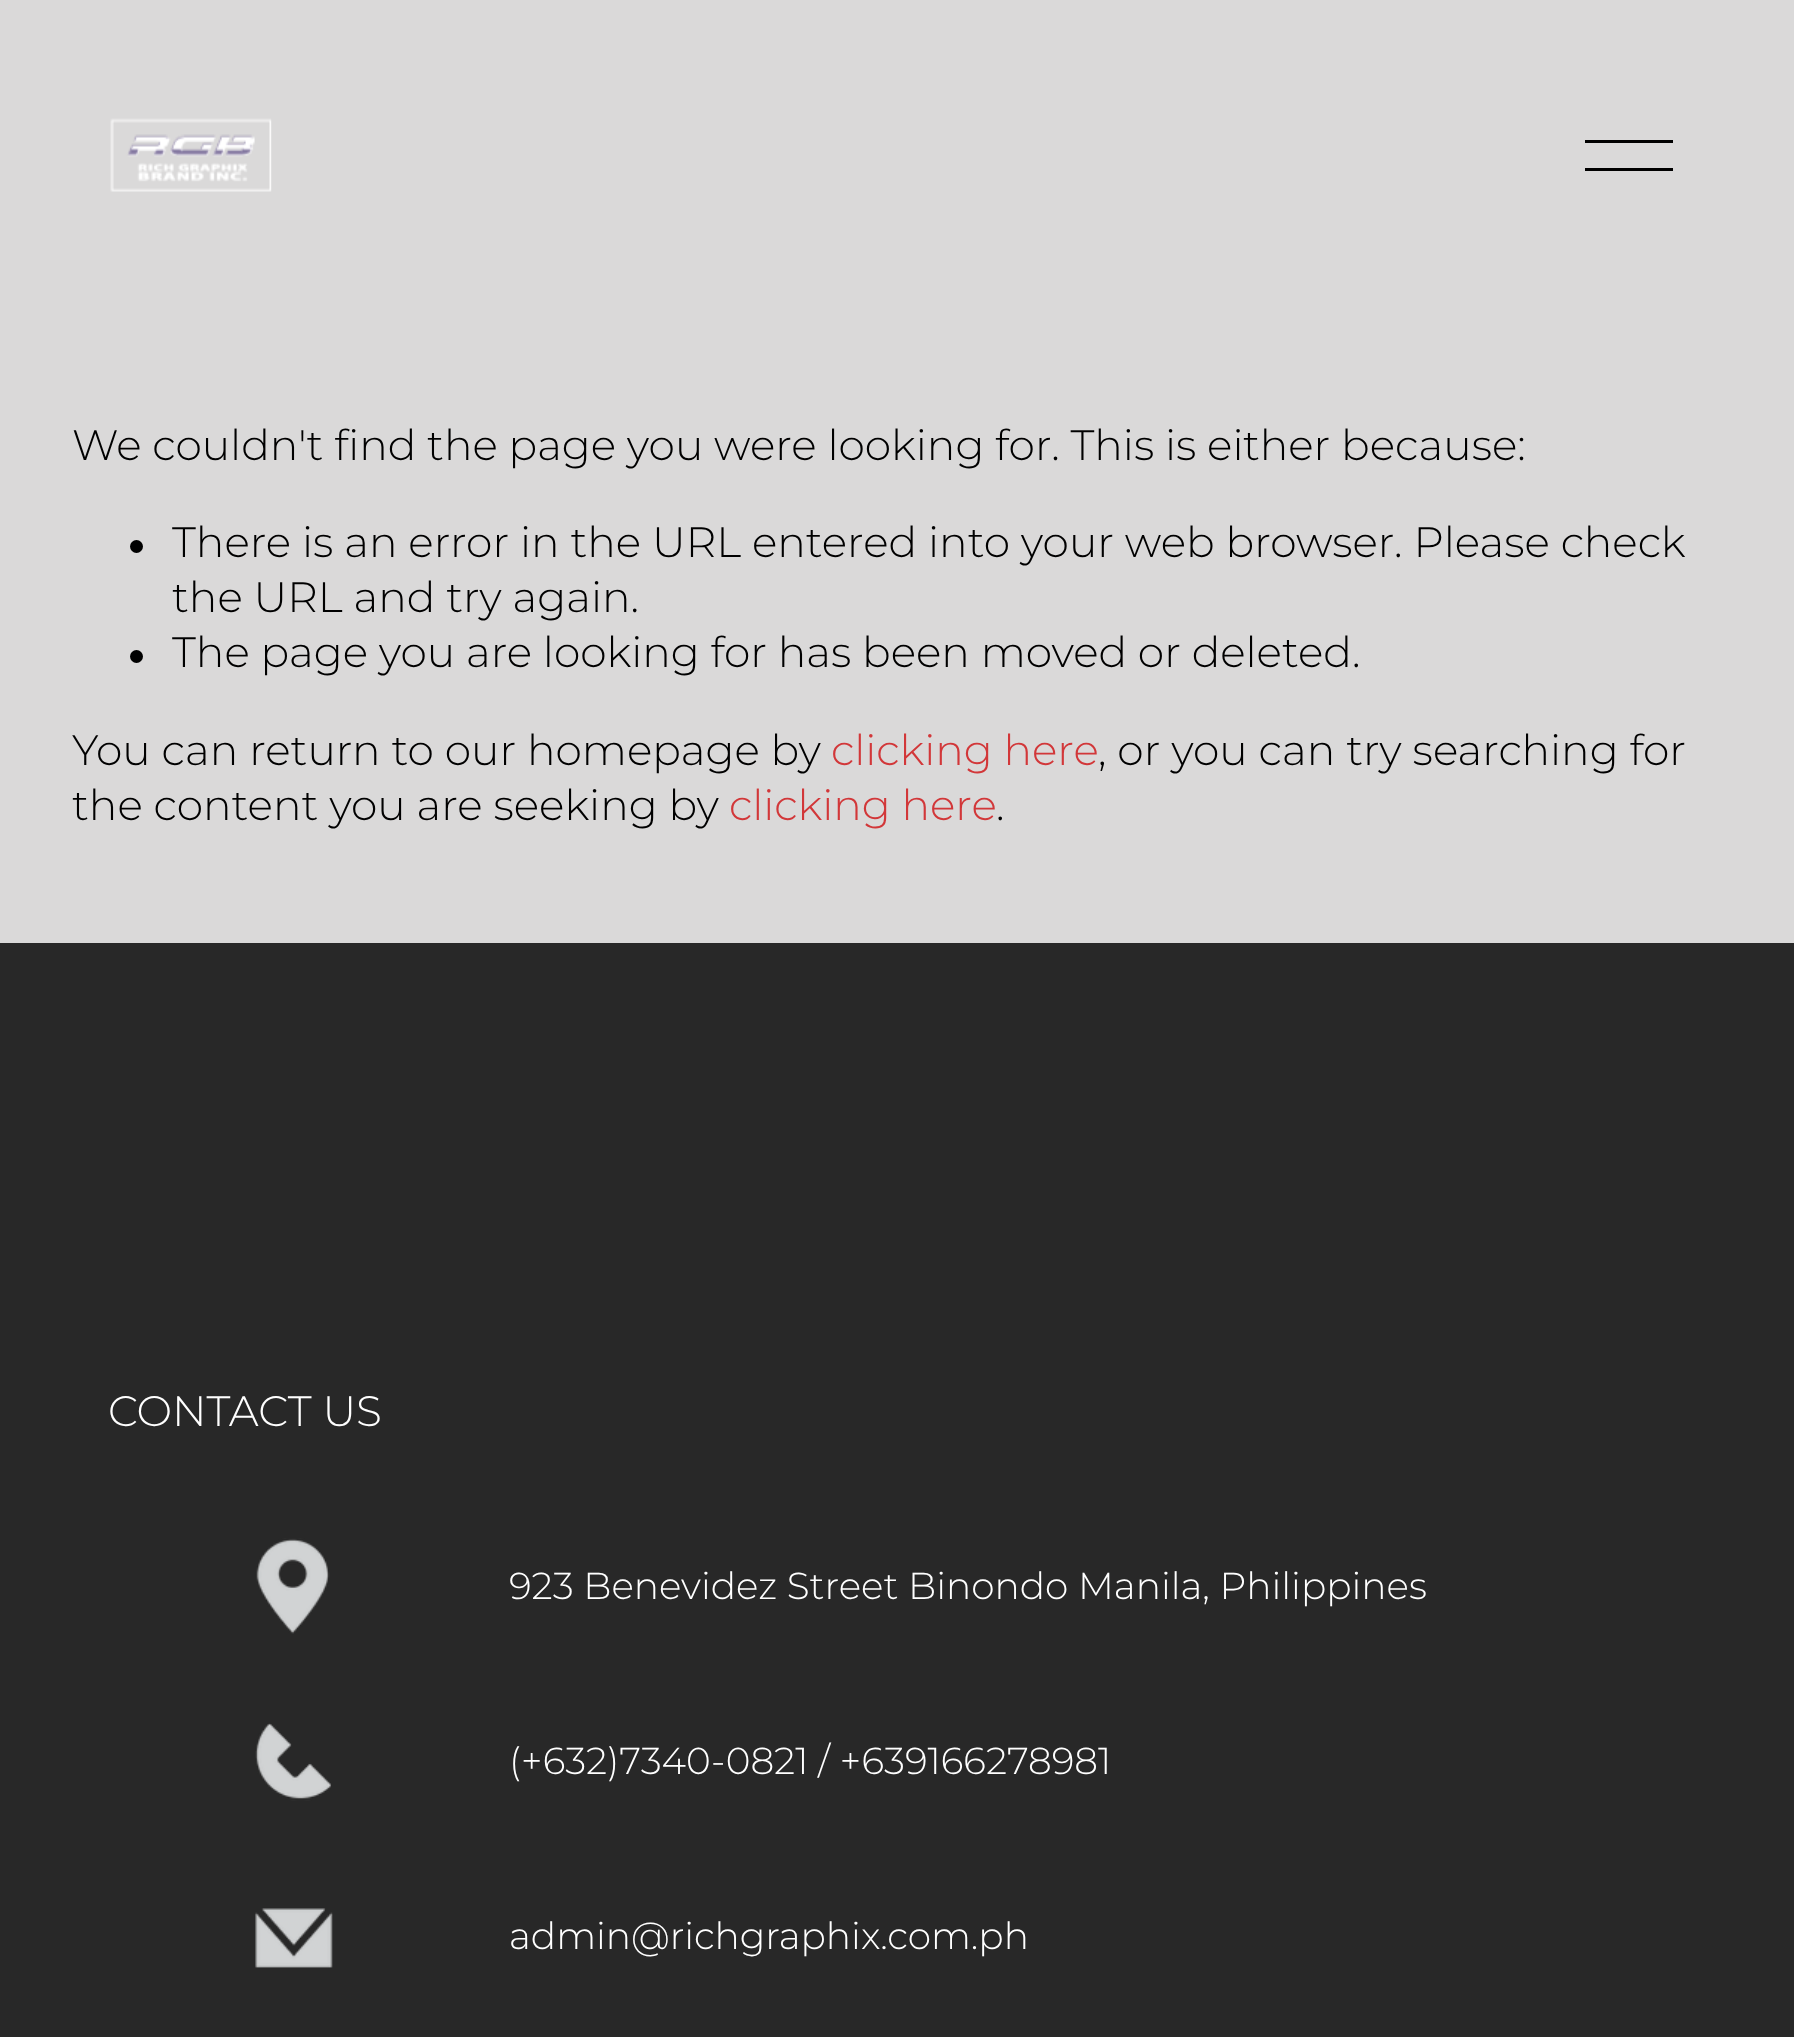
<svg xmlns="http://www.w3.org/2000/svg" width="1794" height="2037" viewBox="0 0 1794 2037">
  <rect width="100%" height="100%" fill="#dad9d9"/>
  <image x="110" y="118" width="162" height="74" href="img/1.png"/>
  <path d="M1585 140h88v3H1585z" fill="#000"/>
  <path d="M1585 168h88v3H1585z" fill="#000"/>
  <circle cx="136.5" cy="546.5" r="6.5" fill="#000"/>
  <circle cx="136.5" cy="656.5" r="6.5" fill="#000"/>
  <path d="M0 943h1794v1094H0z" fill="#282828"/>
  <image x="256" y="1538" width="74" height="96" href="img/2.png"/>
  <image x="255" y="1723" width="76" height="78" href="img/3.png"/>
  <image x="255" y="1908" width="78" height="60" href="img/4.png"/>
  <g font-family="Montserrat" font-size="42.4" font-weight="300" fill="#000">
    <text x="72" y="460" word-spacing="-0.1">We couldn't find the page you were looking for. This is either because:</text>
    <text x="172" y="557">There is an error in the URL entered into your web browser. Please check</text>
    <text x="172" y="612">the URL and try again.</text>
    <text x="172" y="667" word-spacing="-0.1">The page you are looking for has been moved or deleted.</text>
    <text x="72" y="765">You can return to our homepage by</text>
  </g>
  <text x="831" y="765" font-family="Montserrat" font-size="42.4" font-weight="300" fill="#d23739">clicking here</text>
  <g font-family="Montserrat" font-size="42.4" font-weight="300" fill="#000">
    <text x="1098" y="765">, or you can try searching for</text>
    <text x="72" y="820">the content you are seeking by</text>
  </g>
  <text x="729" y="820" font-family="Montserrat" font-size="42.4" font-weight="300" fill="#d23739">clicking here</text>
  <text x="996" y="820" font-family="Montserrat" font-size="42.4" font-weight="300" fill="#000">.</text>
  <text x="108" y="1426" font-family="Montserrat" font-size="42.4" font-weight="300" fill="#fff">CONTACT US</text>
  <g font-family="Montserrat" font-size="37.5" font-weight="300" fill="#fff">
    <text x="509" y="1599">923 Benevidez Street Binondo Manila, Philippines</text>
    <text x="509" y="1774">(+632)7340-0821 / +639166278981</text>
    <text x="509" y="1949">admin@richgraphix.com.ph</text>
  </g>
</svg>
